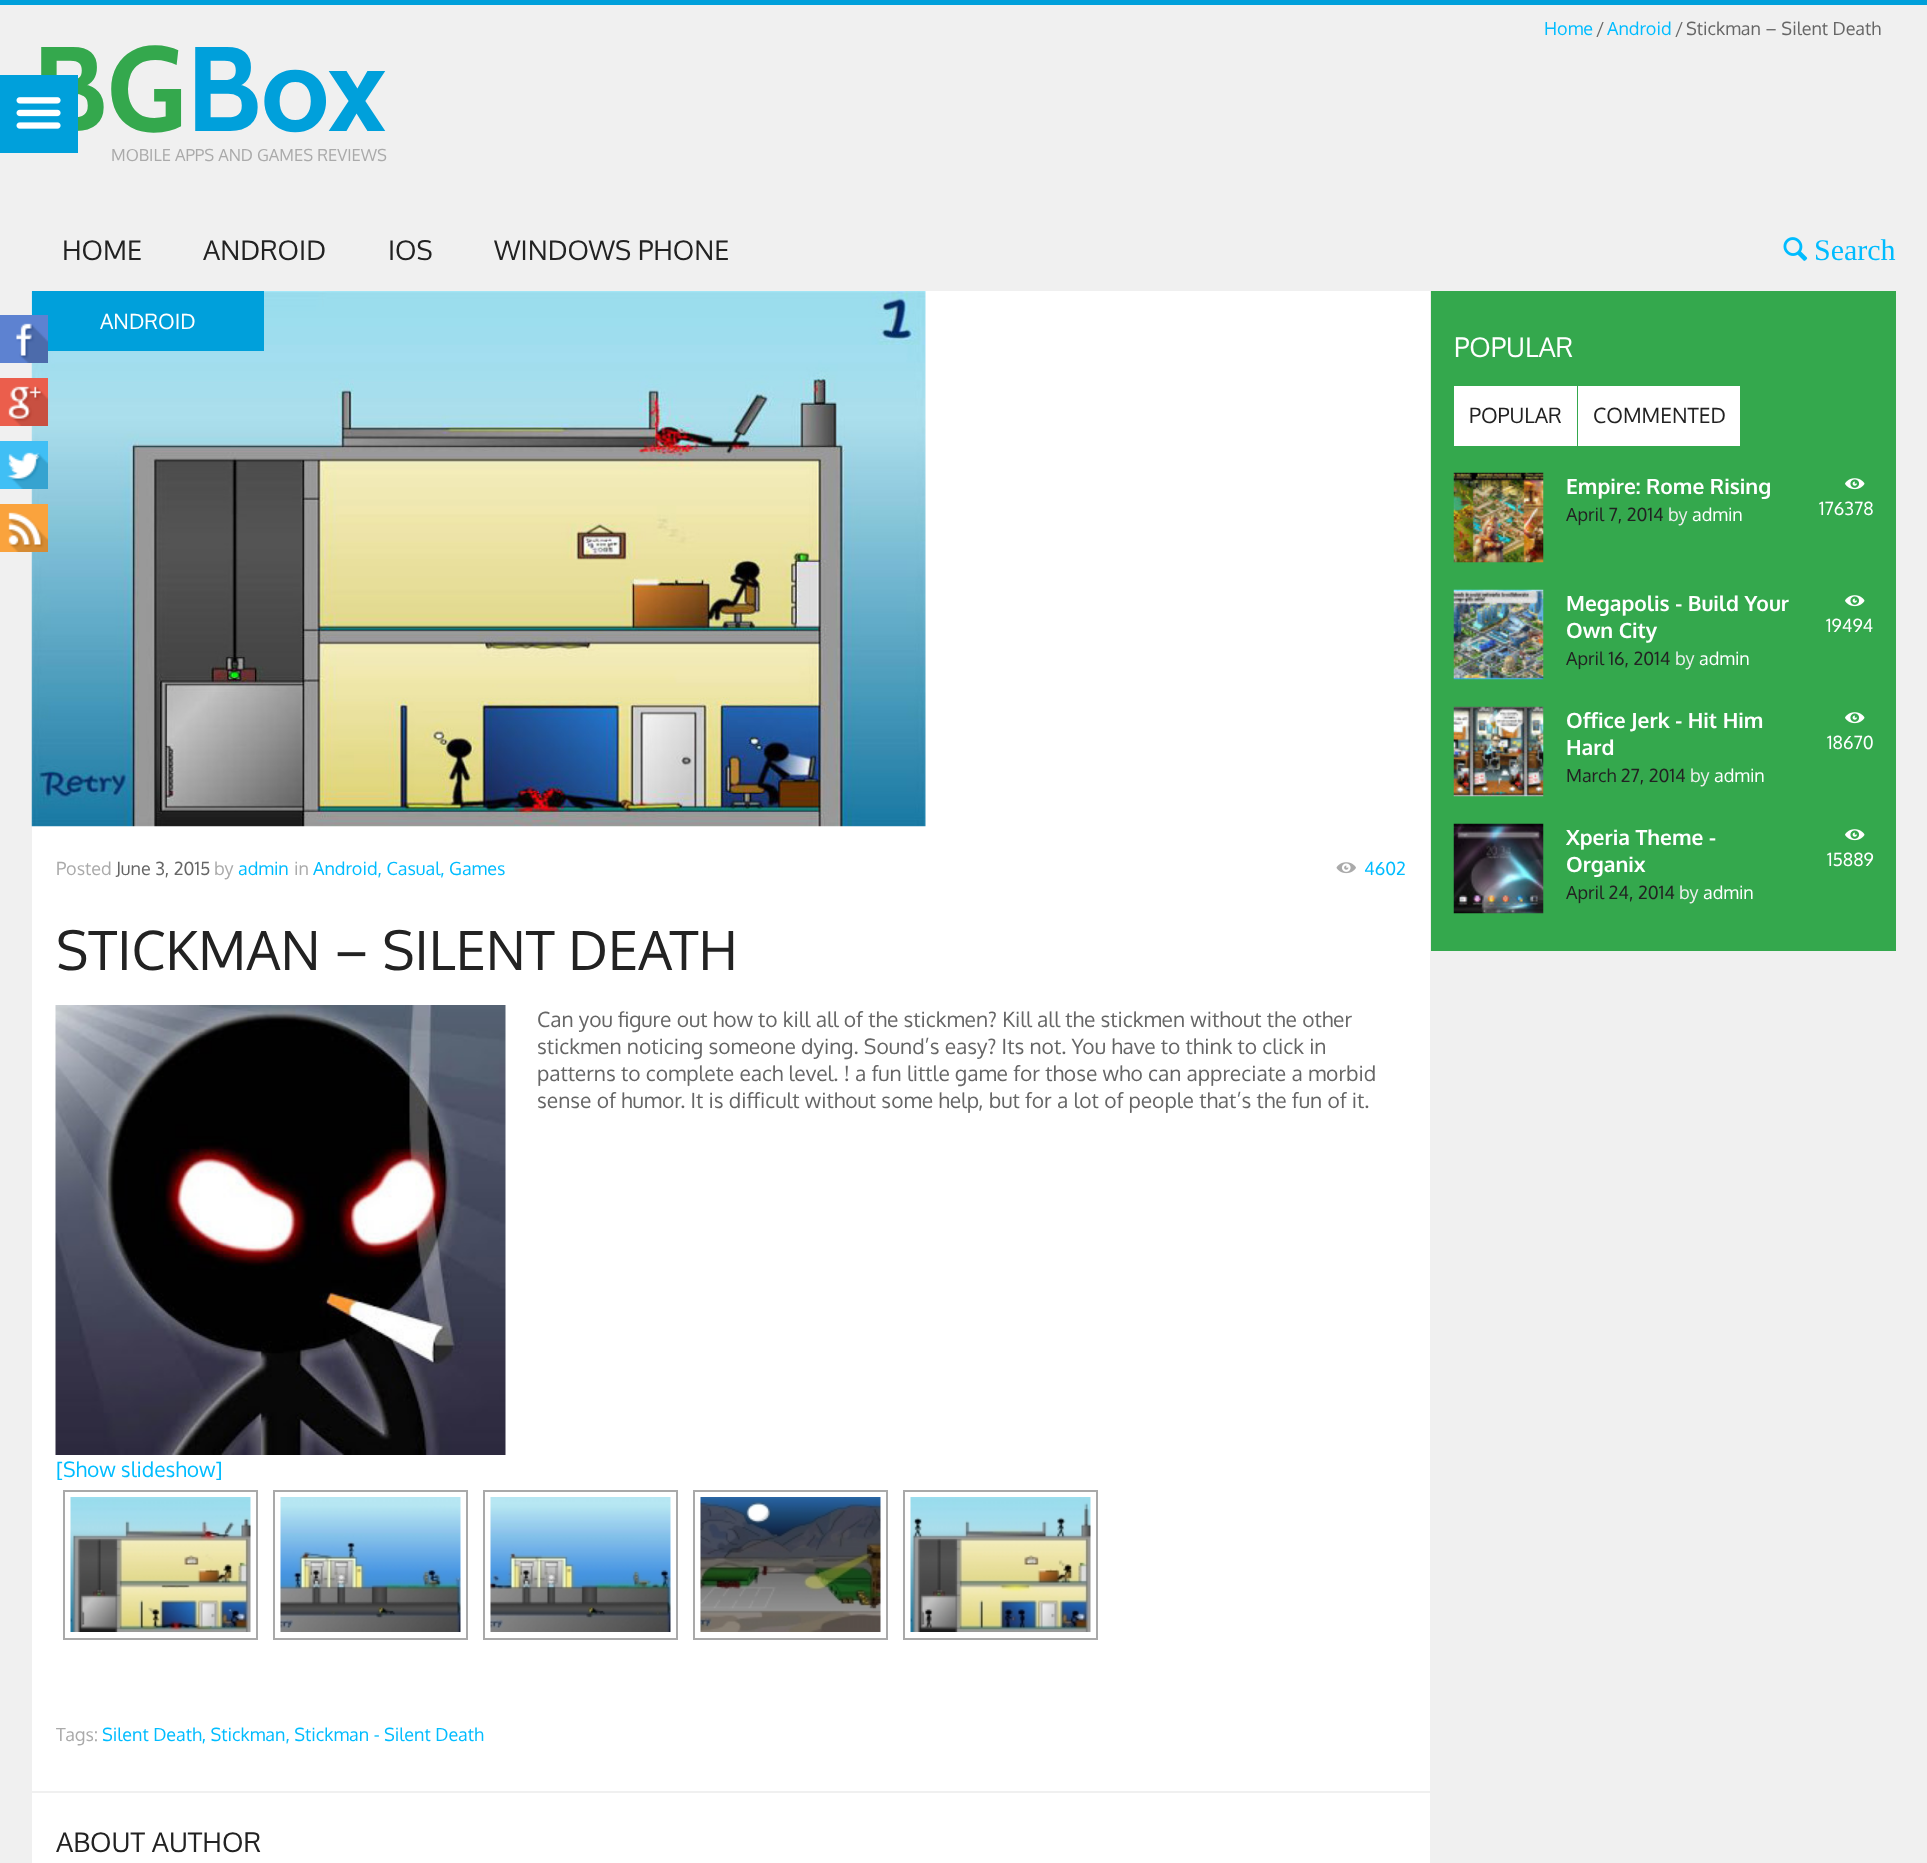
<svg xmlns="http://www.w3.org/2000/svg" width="1927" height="1863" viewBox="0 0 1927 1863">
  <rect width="100%" height="100%" fill="#f0f0f0"/>
  <path d="M0 0h1927v5H0z" fill="#00a0db"/>
  <image x="1783" y="237" width="25" height="24" href="img/2.png"/>
  <path d="M32 291h1398v1500H32z" fill="#fff"/>
  <image x="31" y="291" width="895" height="536" href="img/3.png"/>
  <path d="M32 291h232v60H32z" fill="#00a0db"/>
  <image x="1336" y="862" width="20" height="12" href="img/4.png"/>
  <image x="0" y="315" width="48" height="48" href="img/5.png"/>
  <image x="0" y="378" width="48" height="48" href="img/6.png"/>
  <image x="0" y="441" width="48" height="48" href="img/7.png"/>
  <image x="0" y="504" width="48" height="48" href="img/8.png"/>
  <image x="55" y="1005" width="451" height="450" href="img/9.png"/>
  <path d="M64 1491h193v148H64z" fill="none" stroke="#a9a9a9" stroke-width="2"/>
  <image x="70" y="1497" width="181" height="135" href="img/10.png"/>
  <path d="M274 1491h193v148H274z" fill="none" stroke="#a9a9a9" stroke-width="2"/>
  <image x="280" y="1497" width="181" height="135" href="img/11.png"/>
  <path d="M484 1491h193v148H484z" fill="none" stroke="#a9a9a9" stroke-width="2"/>
  <image x="490" y="1497" width="181" height="135" href="img/12.png"/>
  <path d="M694 1491h193v148H694z" fill="none" stroke="#a9a9a9" stroke-width="2"/>
  <image x="700" y="1497" width="181" height="135" href="img/13.png"/>
  <path d="M904 1491h193v148H904z" fill="none" stroke="#a9a9a9" stroke-width="2"/>
  <image x="910" y="1497" width="181" height="135" href="img/14.png"/>
  <path d="M32 1793h1398v70H32z" fill="#fff"/>
  <path d="M1431 291h465v660H1431z" fill="#34a84d"/>
  <path d="M1454 386h123v60H1454z" fill="#fff"/>
  <path d="M1578 386h162v60H1578z" fill="#fff"/>
  <image x="1453" y="472" width="91" height="91" href="img/15.png"/>
  <image x="1845" y="478" width="20" height="12" href="img/16.png"/>
  <image x="1453" y="589" width="91" height="91" href="img/17.png"/>
  <image x="1845" y="595" width="20" height="12" href="img/16.png"/>
  <image x="1453" y="706" width="91" height="91" href="img/18.png"/>
  <image x="1845" y="712" width="20" height="12" href="img/16.png"/>
  <image x="1453" y="823" width="91" height="91" href="img/19.png"/>
  <image x="1845" y="829" width="20" height="12" href="img/16.png"/>
  <text x="1544" y="35" font-family="Oxygen" font-size="18" fill="#00bcff">Home</text>
  <text x="1596" y="35" font-family="Oxygen" font-size="18" fill="#666">/</text>
  <text x="1607" y="35" font-family="Oxygen" font-size="18" fill="#00bcff">Android</text>
  <g font-family="Oxygen" font-size="18" fill="#666">
    <text x="1675" y="35">/</text>
    <text x="1686" y="35">Stickman – Silent Death</text>
  </g>
  <text x="32" y="131" font-family="Cabin" font-size="120" font-weight="bold" fill="#34a84d">BG</text>
  <path d="M0 75h78v78H0z" fill="#00a0db"/>
  <image x="16" y="97" width="45" height="32" href="img/1.png"/>
  <text x="186" y="131" font-family="Cabin" font-size="120" font-weight="bold" fill="#00a0db">Box</text>
  <text x="111" y="161" font-family="Oxygen" font-size="16.5" fill="#aaa">MOBILE APPS AND GAMES REVIEWS</text>
  <g font-family="Oxygen" font-size="27" fill="#222">
    <text x="62" y="260">HOME</text>
    <text x="203" y="260">ANDROID</text>
    <text x="388" y="260">IOS</text>
    <text x="494" y="260">WINDOWS PHONE</text>
  </g>
  <text x="1814" y="260" font-family="Liberation Serif" font-size="30" fill="#00bcff">Search</text>
  <text x="100" y="329" font-family="Oxygen" font-size="21" fill="#fff">ANDROID</text>
  <text x="56" y="875" font-family="Oxygen" font-size="18" fill="#aaa">Posted</text>
  <text x="116" y="875" font-family="Oxygen" font-size="18" fill="#666">June 3, 2015</text>
  <text x="214" y="875" font-family="Oxygen" font-size="18" fill="#aaa">by</text>
  <text x="238" y="875" font-family="Oxygen" font-size="18" fill="#00bcff">admin</text>
  <text x="294" y="875" font-family="Oxygen" font-size="18" fill="#aaa">in</text>
  <g font-family="Oxygen" font-size="18" fill="#00bcff">
    <text x="313" y="875">Android, Casual, Games</text>
    <text x="1364" y="875">4602</text>
  </g>
  <text x="56" y="970" font-family="Oxygen" font-size="54" fill="#222">STICKMAN – SILENT DEATH</text>
  <g font-family="Oxygen" font-size="21" fill="#666">
    <text x="537" y="1027">Can you figure out how to kill all of the stickmen? Kill all the stickmen without the other</text>
    <text x="537" y="1054">stickmen noticing someone dying. Sound’s easy? Its not. You have to think to click in</text>
    <text x="537" y="1081">patterns to complete each level. ! a fun little game for those who can appreciate a morbid</text>
    <text x="537" y="1108">sense of humor. It is difficult without some help, but for a lot of people that’s the fun of it.</text>
  </g>
  <text x="56" y="1477" font-family="Oxygen" font-size="21" fill="#00bcff">[Show slideshow]</text>
  <text x="56" y="1741" font-family="Oxygen" font-size="18" fill="#aaa">Tags:</text>
  <text x="102" y="1741" font-family="Oxygen" font-size="18" fill="#00bcff">Silent Death, Stickman, Stickman - Silent Death</text>
  <text x="56" y="1852" font-family="Oxygen" font-size="27" fill="#222">ABOUT AUTHOR</text>
  <text x="1454" y="357" font-family="Oxygen" font-size="27" fill="#fff">POPULAR</text>
  <g font-family="Oxygen" font-size="21" fill="#222">
    <text x="1469" y="423">POPULAR</text>
    <text x="1593" y="423">COMMENTED</text>
  </g>
  <text x="1566" y="494" font-family="Oxygen" font-size="21" font-weight="bold" fill="#fff">Empire: Rome Rising</text>
  <text x="1566" y="521" font-family="Oxygen" font-size="18" fill="#222">April 7, 2014</text>
  <text x="1668" y="521" font-family="Oxygen" font-size="18" fill="#eee">by</text>
  <g font-family="Oxygen" font-size="18" fill="#fff">
    <text x="1692" y="521">admin</text>
    <text x="1819" y="515">176378</text>
  </g>
  <g font-family="Oxygen" font-size="21" font-weight="bold" fill="#fff">
    <text x="1566" y="611">Megapolis - Build Your</text>
    <text x="1566" y="638">Own City</text>
  </g>
  <text x="1826" y="632" font-family="Oxygen" font-size="18" fill="#fff">19494</text>
  <text x="1566" y="665" font-family="Oxygen" font-size="18" fill="#222">April 16, 2014</text>
  <text x="1675" y="665" font-family="Oxygen" font-size="18" fill="#eee">by</text>
  <text x="1699" y="665" font-family="Oxygen" font-size="18" fill="#fff">admin</text>
  <g font-family="Oxygen" font-size="21" font-weight="bold" fill="#fff">
    <text x="1566" y="728">Office Jerk - Hit Him</text>
    <text x="1566" y="755">Hard</text>
  </g>
  <text x="1827" y="749" font-family="Oxygen" font-size="18" fill="#fff">18670</text>
  <text x="1566" y="782" font-family="Oxygen" font-size="18" fill="#222">March 27, 2014</text>
  <text x="1690" y="782" font-family="Oxygen" font-size="18" fill="#eee">by</text>
  <text x="1714" y="782" font-family="Oxygen" font-size="18" fill="#fff">admin</text>
  <g font-family="Oxygen" font-size="21" font-weight="bold" fill="#fff">
    <text x="1566" y="845">Xperia Theme -</text>
    <text x="1566" y="872">Organix</text>
  </g>
  <text x="1827" y="866" font-family="Oxygen" font-size="18" fill="#fff">15889</text>
  <text x="1566" y="899" font-family="Oxygen" font-size="18" fill="#222">April 24, 2014</text>
  <text x="1679" y="899" font-family="Oxygen" font-size="18" fill="#eee">by</text>
  <text x="1703" y="899" font-family="Oxygen" font-size="18" fill="#fff">admin</text>
</svg>
